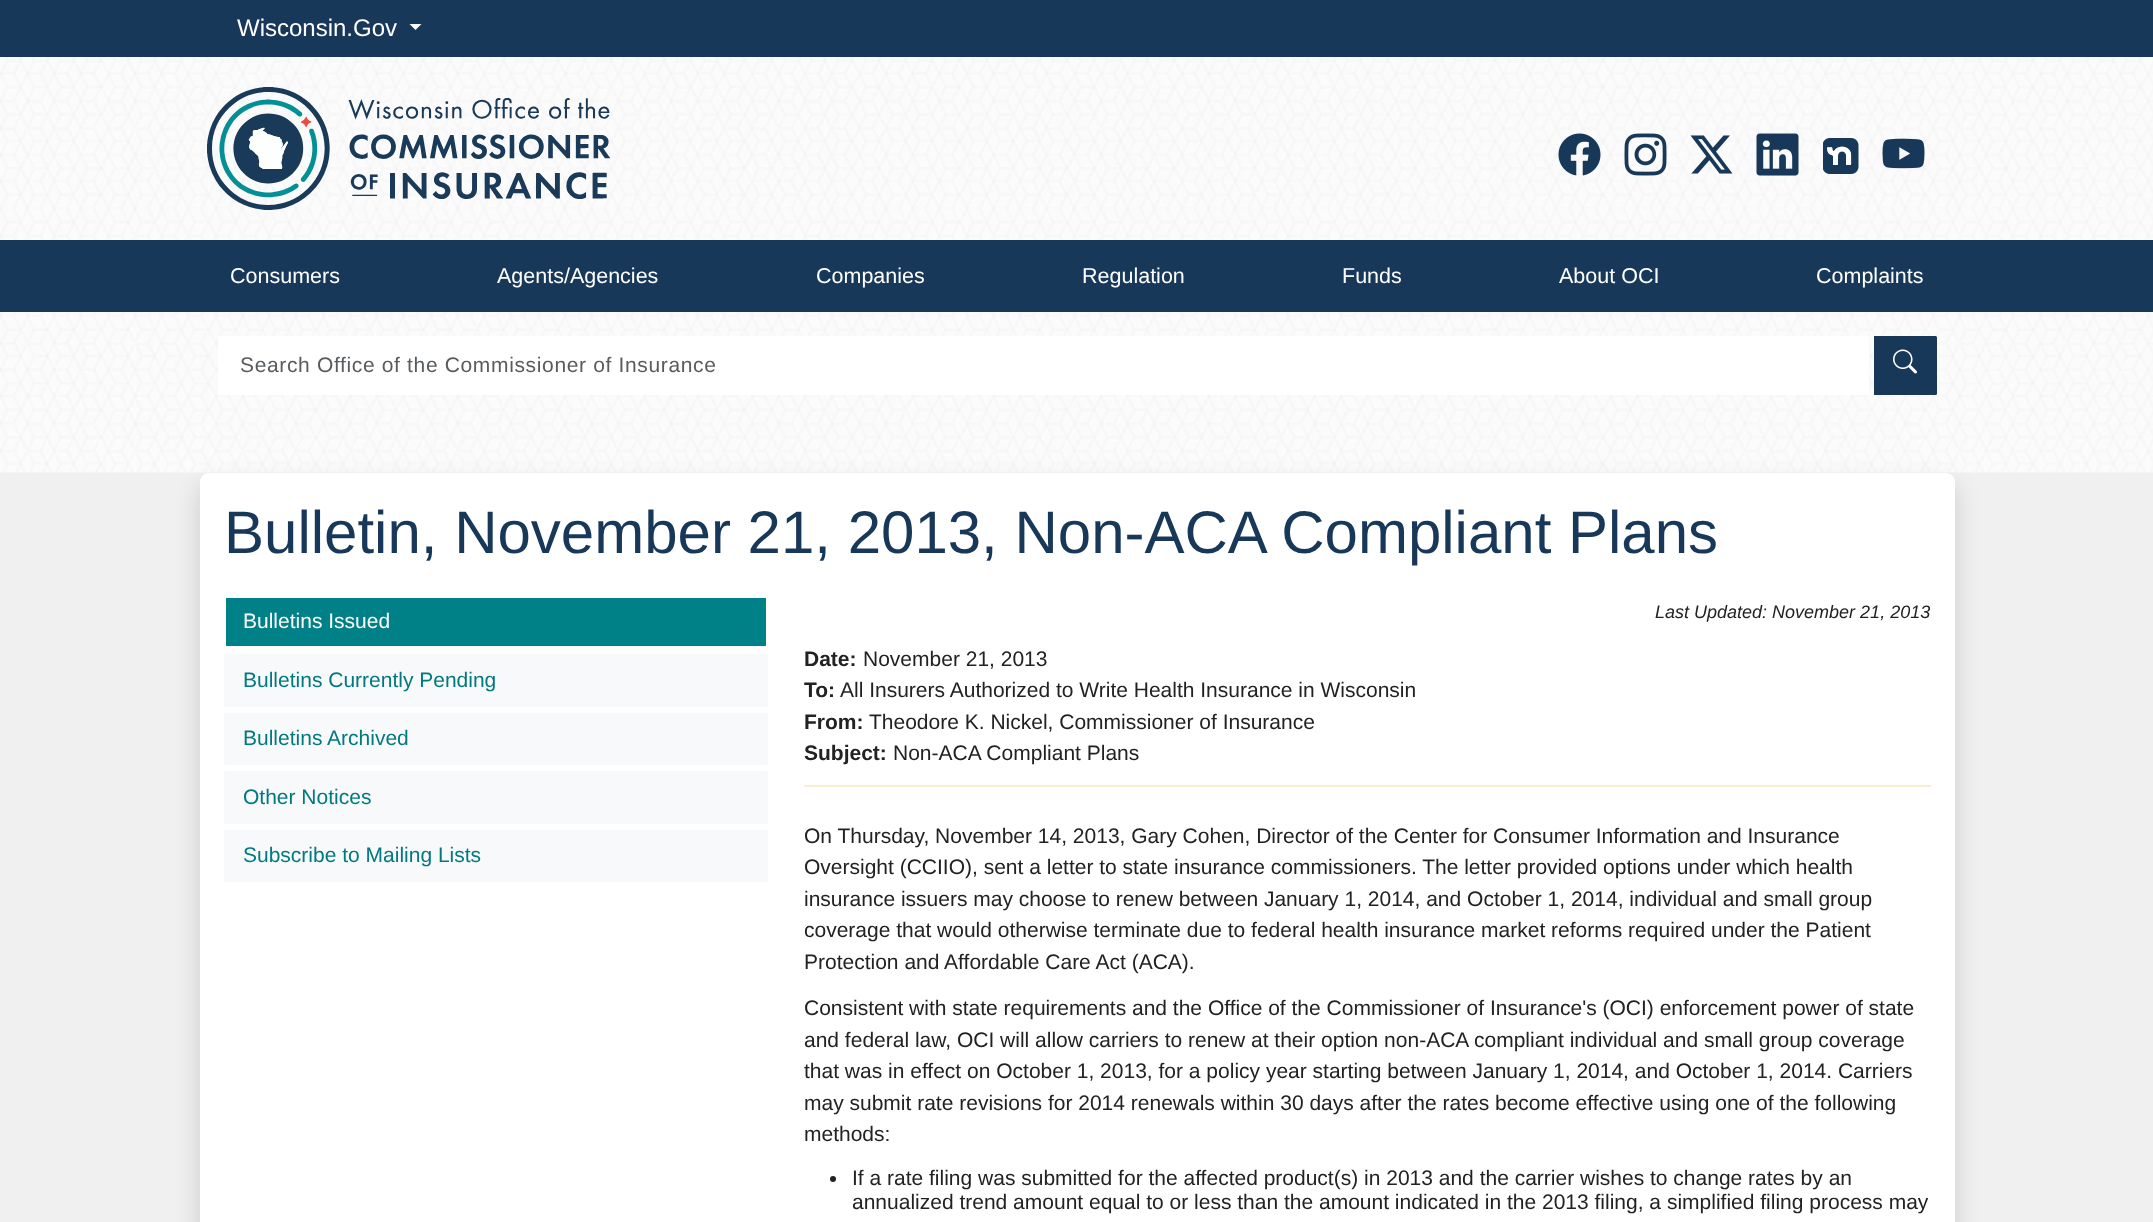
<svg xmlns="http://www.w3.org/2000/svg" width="2153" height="1222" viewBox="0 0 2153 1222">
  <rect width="100%" height="100%" fill="#f0f0f0"/>
  <image x="0" y="57" width="2153" height="416" href="img/1.png"/>
  <path d="M0 0h2153v57H0z" fill="#183859"/>
  <path d="M409.5 24H421.5L415.5 30Z" fill="#fff"/>
  <image x="207" y="87" width="404" height="123" href="img/2.png"/>
  <image x="1558" y="133" width="43" height="43" href="img/3.png"/>
  <image x="1624" y="133" width="43" height="43" href="img/4.png"/>
  <image x="1690" y="135" width="43" height="39" href="img/5.png"/>
  <image x="1756" y="133" width="43" height="43" href="img/6.png"/>
  <image x="1823" y="138" width="36" height="36" href="img/7.png"/>
  <image x="1882" y="138" width="43" height="31" href="img/8.png"/>
  <path d="M0 240h2153v72H0z" fill="#183859"/>
  <path d="M219.5 336H1869V395H219.5C218.5 395 218 394.5 218 393.5V337.5C218 336.5 218.5 336 219.5 336Z" fill="#fff"/>
  <path d="M1875 337H1935.5C1936 337 1936 337 1936 337.5V393.5C1936 394 1936 394 1935.5 394H1875Z" fill="#183859" stroke="#183859" stroke-width="2"/>
  <image x="1893" y="349" width="24" height="25" href="img/9.png"/>
  <rect x="200" y="485" width="1755" height="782" rx="9" fill="#00000026" filter="blur(12px)"/>
  <path d="M209 473H1946C1951 473 1955 477 1955 482V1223H200V482C200 477 204 473 209 473Z" fill="#fff"/>
  <rect x="225" y="597" width="542" height="50" rx="0.5" fill="#008087" stroke="#fff" stroke-width="2"/>
  <rect x="224" y="654" width="544" height="53" rx="1.5" fill="#f8f9fa"/>
  <rect x="224" y="713" width="544" height="52" rx="1.5" fill="#f8f9fa"/>
  <rect x="224" y="771" width="544" height="53" rx="1.5" fill="#f8f9fa"/>
  <rect x="224" y="830" width="544" height="52" rx="1.5" fill="#f8f9fa"/>
  <path d="M804 785h1127v2H804z" fill="#fbedd0"/>
  <circle cx="833" cy="1179" r="3" fill="#222"/>
  <text x="237" y="36" font-family="Liberation Sans" font-size="24" fill="#fff">Wisconsin.Gov</text>
  <g font-family="Liberation Sans" font-size="21.5" fill="#fff">
    <text x="230" y="283">Consumers</text>
    <text x="497" y="283">Agents/Agencies</text>
    <text x="816" y="283">Companies</text>
    <text x="1082" y="283">Regulation</text>
    <text x="1342" y="283">Funds</text>
    <text x="1559" y="283">About OCI</text>
    <text x="1816" y="283">Complaints</text>
  </g>
  <text x="240" y="372" font-family="Liberation Sans" font-size="21" letter-spacing="0.65" fill="#595c5f">Search Office of the Commissioner of Insurance</text>
  <text x="224" y="553" font-family="Liberation Sans" font-size="60" fill="#183859">Bulletin, November 21, 2013, Non-ACA Compliant Plans</text>
  <text x="243" y="628" font-family="Liberation Sans" font-size="21" fill="#fff">Bulletins Issued</text>
  <g font-family="Liberation Sans" font-size="21" fill="#007980">
    <text x="243" y="687">Bulletins Currently Pending</text>
    <text x="243" y="745">Bulletins Archived</text>
    <text x="243" y="804">Other Notices</text>
    <text x="243" y="862">Subscribe to Mailing Lists</text>
  </g>
  <text x="1655" y="618" font-family="Liberation Sans" font-size="18" font-style="italic" fill="#222">Last Updated: November 21, 2013</text>
  <text x="804" y="666" font-family="Liberation Sans" font-size="21" font-weight="bold" fill="#222">Date:</text>
  <text x="863" y="666" font-family="Liberation Sans" font-size="21" fill="#222">November 21, 2013</text>
  <text x="804" y="697" font-family="Liberation Sans" font-size="21" font-weight="bold" fill="#222">To:</text>
  <text x="840" y="697" font-family="Liberation Sans" font-size="21" fill="#222">All Insurers Authorized to Write Health Insurance in Wisconsin</text>
  <text x="804" y="729" font-family="Liberation Sans" font-size="21" font-weight="bold" fill="#222">From:</text>
  <text x="869" y="729" font-family="Liberation Sans" font-size="21" fill="#222">Theodore K. Nickel, Commissioner of Insurance</text>
  <text x="804" y="760" font-family="Liberation Sans" font-size="21" font-weight="bold" fill="#222">Subject:</text>
  <g font-family="Liberation Sans" font-size="21" fill="#222">
    <text x="893" y="760">Non-ACA Compliant Plans</text>
    <text x="804" y="843">On Thursday, November 14, 2013, Gary Cohen, Director of the Center for Consumer Information and Insurance</text>
    <text x="804" y="874">Oversight (CCIIO), sent a letter to state insurance commissioners. The letter provided options under which health</text>
    <text x="804" y="906">insurance issuers may choose to renew between January 1, 2014, and October 1, 2014, individual and small group</text>
    <text x="804" y="937">coverage that would otherwise terminate due to federal health insurance market reforms required under the Patient</text>
    <text x="804" y="969">Protection and Affordable Care Act (ACA).</text>
    <text x="804" y="1015">Consistent with state requirements and the Office of the Commissioner of Insurance's (OCI) enforcement power of state</text>
    <text x="804" y="1047">and federal law, OCI will allow carriers to renew at their option non-ACA compliant individual and small group coverage</text>
    <text x="804" y="1078">that was in effect on October 1, 2013, for a policy year starting between January 1, 2014, and October 1, 2014. Carriers</text>
    <text x="804" y="1110">may submit rate revisions for 2014 renewals within 30 days after the rates become effective using one of the following</text>
    <text x="804" y="1141">methods:</text>
    <text x="852" y="1185">If a rate filing was submitted for the affected product(s) in 2013 and the carrier wishes to change rates by an</text>
    <text x="852" y="1209">annualized trend amount equal to or less than the amount indicated in the 2013 filing, a simplified filing process may</text>
  </g>
</svg>
